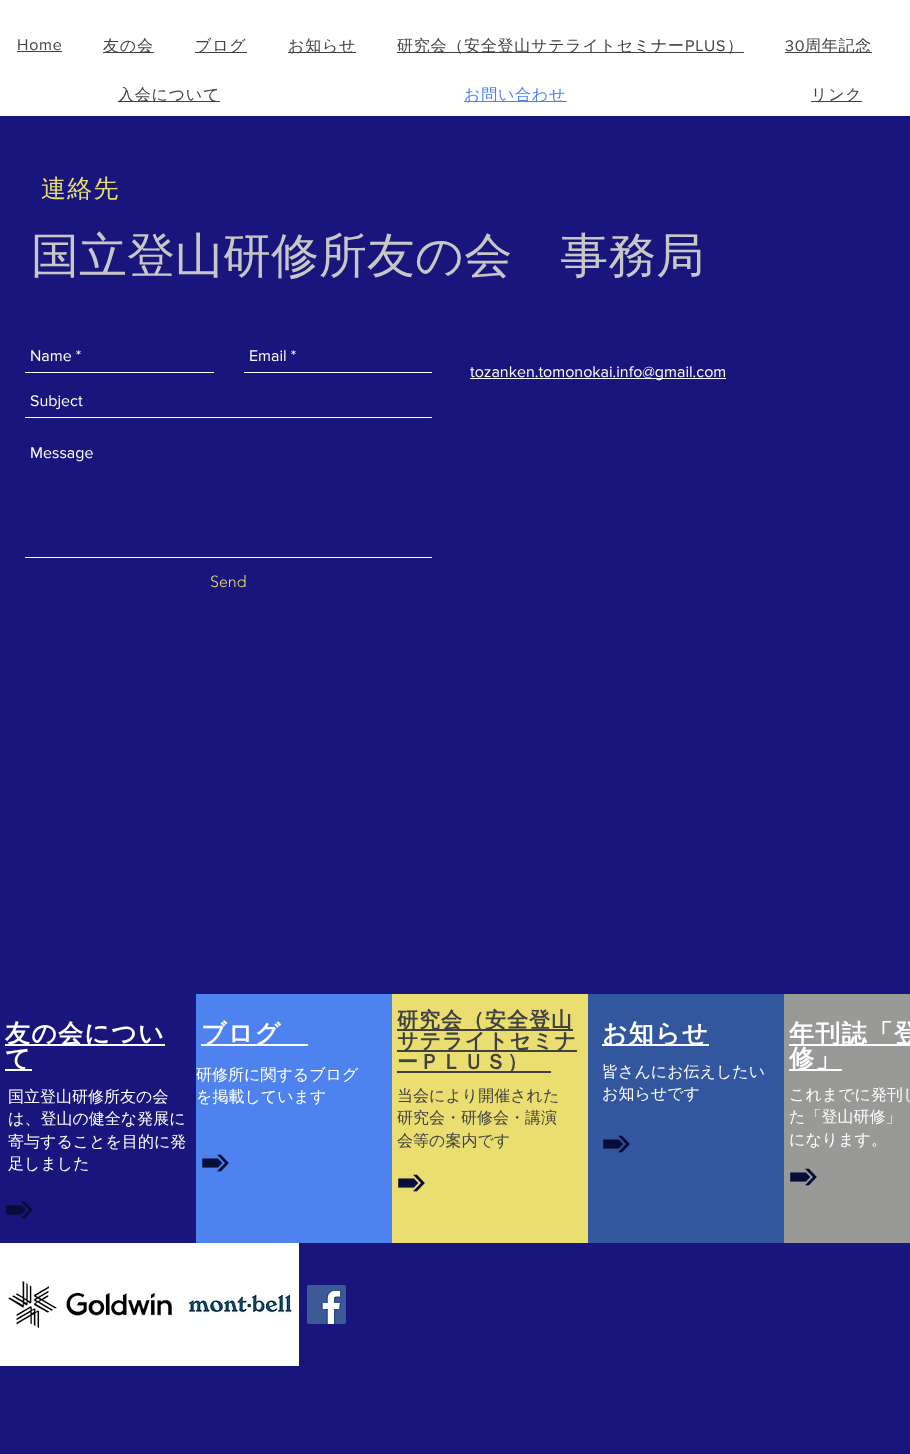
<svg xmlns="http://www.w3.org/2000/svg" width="910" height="1454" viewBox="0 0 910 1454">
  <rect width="100%" height="100%" fill="#18157c"/>
  <path d="M0 0h910v116H0z" fill="#fff"/>
  <path d="M17 51h45v1H17z" fill="#414141"/>
  <path d="M103 52h51v1H103z" fill="#414141"/>
  <path d="M195 52h52v1H195z" fill="#414141"/>
  <path d="M288 52h68v1H288z" fill="#414141"/>
  <path d="M397 52h347v1H397z" fill="#414141"/>
  <path d="M785 52h87v1H785z" fill="#414141"/>
  <path d="M118 101h102v1H118z" fill="#414141"/>
  <path d="M464 101h103v1H464z" fill="#4d82ef"/>
  <path d="M811 101h51v1H811z" fill="#414141"/>
  <path d="M25 372h189v1H25z" fill="#fff"/>
  <path d="M244 372h188v1H244z" fill="#fff"/>
  <path d="M25 417h407v1H25z" fill="#fff"/>
  <path d="M25 557h407v1H25z" fill="#fff"/>
  <path d="M470 378h256v1H470z" fill="#fff"/>
  <path d="M392 994h196v249H392z" fill="#eade71"/>
  <path d="M5 1044h160v2H5z" fill="#fff"/>
  <path d="M5 1069h27v2H5z" fill="#fff"/>
  <image x="6" y="1201" width="27" height="18" href="img/1.png"/>
  <path d="M196 994h196v249H196z" fill="#4d82ef"/>
  <path d="M201 1044h107v2H201z" fill="#fff"/>
  <image x="202" y="1154" width="27" height="18" href="img/2.png"/>
  <path d="M397 1029h176v2H397z" fill="#414141"/>
  <path d="M397 1050h180v2H397z" fill="#414141"/>
  <path d="M397 1071h154v2H397z" fill="#414141"/>
  <image x="398" y="1174" width="27" height="18" href="img/3.png"/>
  <path d="M588 994h196v249H588z" fill="#33579f"/>
  <path d="M602 1044h107v2H602z" fill="#fff"/>
  <image x="603" y="1135" width="27" height="18" href="img/4.png"/>
  <path d="M784 994h126v249H784z" fill="#999997"/>
  <path d="M789 1044h121v2H789z" fill="#fff"/>
  <path d="M789 1069h53v2H789z" fill="#fff"/>
  <image x="790" y="1168" width="27" height="18" href="img/5.png"/>
  <image x="0" y="1243" width="180" height="123" href="img/6.png"/>
  <image x="180" y="1243" width="119" height="123" href="img/7.png"/>
  <image x="307" y="1285" width="39" height="39" href="img/8.png"/>
  <text x="17" y="50" font-family="'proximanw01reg'" font-size="16" letter-spacing="0.75" fill="#414141">Home</text>
  <g font-family="WenQuanYi Zen Hei" font-size="16" font-weight="500" letter-spacing="0.75" fill="#414141">
    <text x="103" y="51">友の会</text>
    <text x="195" y="51">ブログ</text>
    <text x="288" y="51">お知らせ</text>
    <text x="397" y="51">研究会（安全登山サテライトセミナー</text>
  </g>
  <text x="685" y="51" font-family="'proximanw01reg'" font-size="16" letter-spacing="0.75" fill="#414141">PLUS</text>
  <text x="727" y="51" font-family="WenQuanYi Zen Hei" font-size="16" font-weight="500" letter-spacing="0.75" fill="#414141">）</text>
  <text x="785" y="51" font-family="'proximanw01reg'" font-size="16" letter-spacing="0.75" fill="#414141">30</text>
  <g font-family="WenQuanYi Zen Hei" font-size="16" font-weight="500" letter-spacing="0.75" fill="#414141">
    <text x="805" y="51">周年記念</text>
    <text x="118" y="100">入会について</text>
  </g>
  <text x="464" y="100" font-family="WenQuanYi Zen Hei" font-size="16" font-weight="500" letter-spacing="0.75" fill="#4d82ef">お問い合わせ</text>
  <text x="811" y="100" font-family="WenQuanYi Zen Hei" font-size="16" font-weight="500" letter-spacing="0.75" fill="#414141">リンク</text>
  <text x="41" y="197" font-family="WenQuanYi Zen Hei" font-size="25" font-weight="500" letter-spacing="1.25" fill="#eade71">連絡先</text>
  <text x="31" y="272" font-family="WenQuanYi Zen Hei" font-size="48" font-weight="500" fill="#c7c7c7">国立登山研修所友の会　事務局</text>
  <g font-family="'proximanw01reg'" font-size="16" fill="#fff">
    <text x="30" y="361">Name *</text>
    <text x="249" y="361">Email *</text>
    <text x="30" y="406">Subject</text>
    <text x="30" y="458">Message</text>
  </g>
  <text x="210" y="587" font-family="'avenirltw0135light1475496'" font-size="16" font-weight="300" fill="#eade71">Send</text>
  <text x="470" y="377" font-family="'proximanw01reg'" font-size="16" fill="#fff">tozanken.tomonokai.info@gmail.com</text>
  <g font-family="WenQuanYi Zen Hei" font-size="25" font-weight="bold" letter-spacing="1.25" fill="#fff">
    <text x="5" y="1042">友の会につい</text>
    <text x="5" y="1067">て</text>
  </g>
  <g font-family="WenQuanYi Zen Hei" font-size="16" font-weight="500" fill="#fff">
    <text x="8" y="1102">国立登山研修所友の会</text>
    <text x="8" y="1124">は、登山の健全な発展に</text>
    <text x="8" y="1147">寄与することを目的に発</text>
    <text x="8" y="1169">足しました</text>
  </g>
  <text x="201" y="1042" font-family="WenQuanYi Zen Hei" font-size="25" font-weight="bold" letter-spacing="1.25" fill="#fff">ブログ</text>
  <g font-family="WenQuanYi Zen Hei" font-size="16" font-weight="500" fill="#fff">
    <text x="196" y="1080">研修所に関するブログ</text>
    <text x="196" y="1102">を掲載しています</text>
  </g>
  <g font-family="WenQuanYi Zen Hei" font-size="21" font-weight="bold" letter-spacing="1" fill="#414141">
    <text x="397" y="1027">研究会（安全登山</text>
    <text x="397" y="1048">サテライトセミナ</text>
    <text x="397" y="1069">ーＰＬＵＳ）</text>
  </g>
  <g font-family="WenQuanYi Zen Hei" font-size="16" font-weight="500" fill="#414141">
    <text x="397" y="1101">当会により開催された</text>
    <text x="397" y="1123">研究会・研修会・講演</text>
    <text x="397" y="1146">会等の案内です</text>
  </g>
  <text x="602" y="1042" font-family="WenQuanYi Zen Hei" font-size="25" font-weight="bold" letter-spacing="1.25" fill="#fff">お知らせ</text>
  <g font-family="WenQuanYi Zen Hei" font-size="16" font-weight="500" fill="#fff">
    <text x="602" y="1077">皆さんにお伝えしたい</text>
    <text x="602" y="1099">お知らせです</text>
  </g>
  <g font-family="WenQuanYi Zen Hei" font-size="25" font-weight="bold" letter-spacing="1.25" fill="#fff">
    <text x="789" y="1042">年刊誌「登</text>
    <text x="789" y="1067">修」</text>
  </g>
  <g font-family="WenQuanYi Zen Hei" font-size="16" font-weight="500" fill="#fff">
    <text x="789" y="1100">これまでに発刊し</text>
    <text x="789" y="1122">た「登山研修」</text>
    <text x="789" y="1145">になります。</text>
  </g>
</svg>
